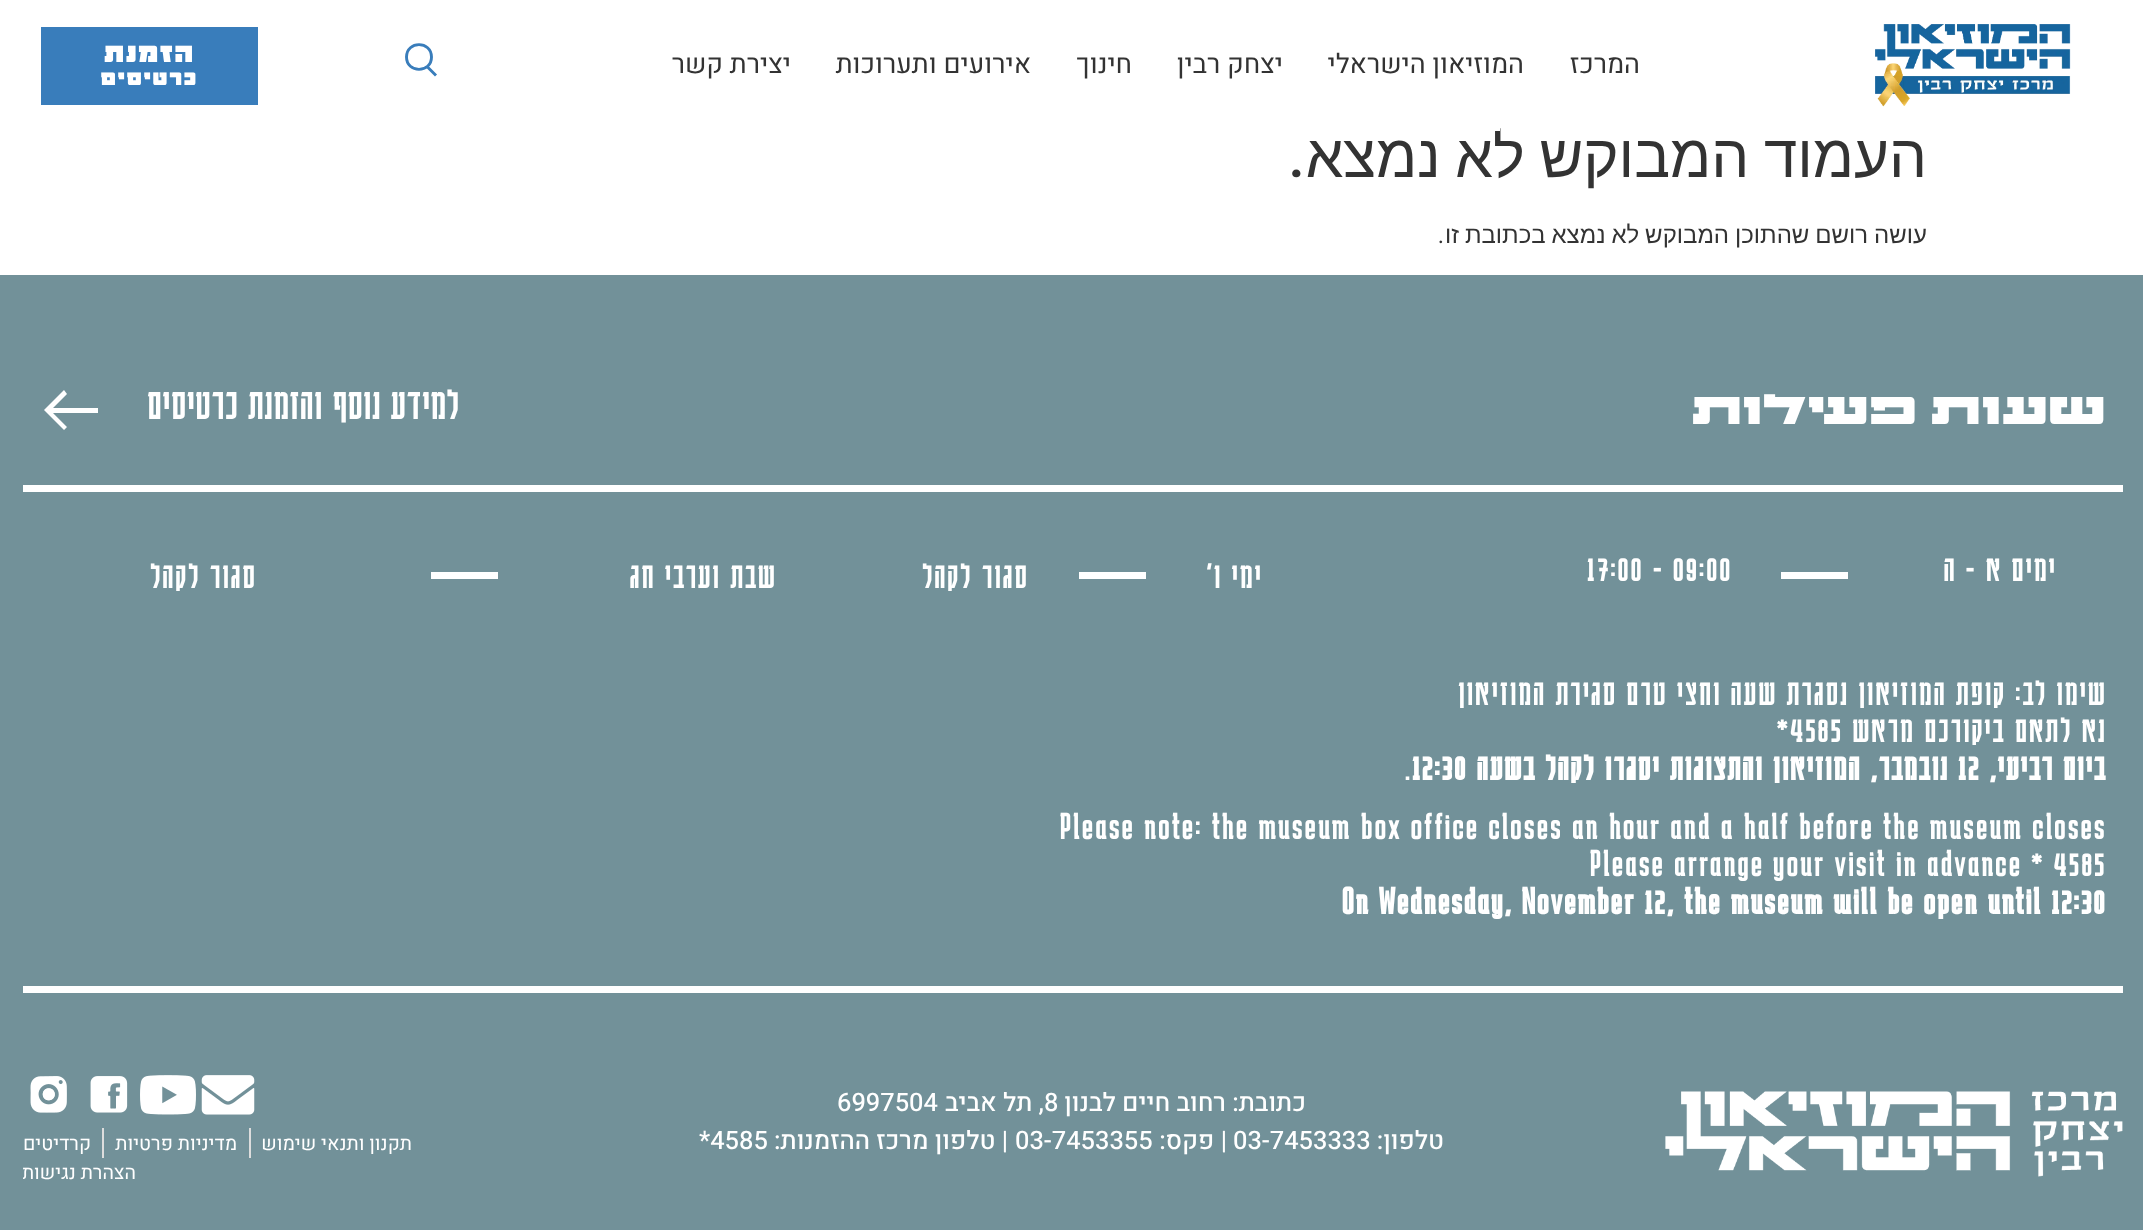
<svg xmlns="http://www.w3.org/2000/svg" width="2143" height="1230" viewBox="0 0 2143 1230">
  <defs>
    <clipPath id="clip1"><path d="M23 1121h525v66H23z"/></clipPath>
  </defs>
  <rect width="100%" height="100%" fill="#fff"/>
  <image x="1875" y="24" width="196" height="83" href="img/1.png"/>
  <path d="M431.5 57C431.5 73.5 406.5 73.5 406.5 57C406.5 40.5 431.5 40.5 431.5 57ZM427 66.5L436 75.5" fill="none" stroke="#397dbb" stroke-width="2.9"/>
  <path d="M41 27h217v78H41z" fill="#397dbb"/>
  <path d="M0 275h2143v955H0z" fill="#729199"/>
  <path d="M98 408H53L67 394L64 390L44 410L64 430L67 427L53 413H98Z" fill="#fff"/>
  <path d="M23 485h2100v7H23z" fill="#fff"/>
  <path d="M1781 572h67v7H1781z" fill="#fff"/>
  <path d="M1079 572h67v7H1079z" fill="#fff"/>
  <path d="M431 572h67v7H431z" fill="#fff"/>
  <path d="M23 986h2100v7H23z" fill="#fff"/>
  <image x="1665" y="1091" width="458" height="86" href="img/2.png"/>
  <image x="201" y="1075" width="54" height="40" href="img/3.png"/>
  <image x="140" y="1075" width="56" height="40" href="img/4.png"/>
  <image x="90" y="1076" width="38" height="37" href="img/5.png"/>
  <image x="30" y="1076" width="37" height="37" href="img/6.png"/>
  <path d="M249 1128h2v30H249z" fill="#ddd"/>
  <path d="M102 1128h2v30H102z" fill="#ddd"/>
  <g font-family="Heebo" font-size="27" direction="rtl" fill="#333">
    <text x="1640" y="73">המרכז</text>
    <text x="1524" y="73">המוזיאון הישראלי</text>
    <text x="1283" y="73">יצחק רבין</text>
    <text x="1132" y="73">חינוך</text>
    <text x="1031" y="73">אירועים ותערוכות</text>
    <text x="791" y="73">יצירת קשר</text>
  </g>
  <text x="195" y="62" font-family="'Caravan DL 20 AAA'" font-size="27" letter-spacing="2.25" direction="rtl" fill="#fff">הזמנת</text>
  <text x="198" y="85" font-family="'Caravan DL 20 AAA'" font-size="21" letter-spacing="2.25" direction="rtl" fill="#fff">כרטיסים</text>
  <text x="1927" y="177" word-spacing="-2" font-family="Liberation Sans" font-size="60" direction="rtl" fill="#333">העמוד המבוקש לא נמצא</text>
  <path d="M1494 128h6v3H1494z" fill="#fff"/>
  <text x="1305" y="177" font-family="Roboto" font-size="60" font-weight="500" direction="rtl" fill="#333">.</text>
  <text x="1927" y="243" word-spacing="-0.75" font-family="Liberation Sans" font-size="24" direction="rtl" fill="#333">עושה רושם שהתוכן המבוקש לא נמצא בכתובת זו</text>
  <text x="1444" y="243" font-family="Roboto" font-size="24" direction="rtl" fill="#333">.</text>
  <text x="2107" y="424" font-family="'Caravan DL 20 AAA'" font-size="45" font-weight="900" letter-spacing="2.4" direction="rtl" fill="#fff">שעות פעילות</text>
  <text x="460" y="419" font-family="Karantina" font-size="45" letter-spacing="1.35" direction="rtl" fill="#fff">למידע נוסף והזמנת כרטיסים</text>
  <text x="2057" y="581" font-family="Karantina" font-size="37.5" letter-spacing="2.4" direction="rtl" fill="#fff">ימים א - ה</text>
  <text x="1587" y="581" font-family="Karantina" font-size="37.5" letter-spacing="2.4" fill="#fff">17:00 - 09:00</text>
  <g font-family="Karantina" font-size="37.5" letter-spacing="2.4" direction="rtl" fill="#fff">
    <text x="1263" y="588">ימי ו׳</text>
    <text x="1029" y="588">סגור לקהל</text>
    <text x="777" y="588">שבת וערבי חג</text>
    <text x="257" y="588">סגור לקהל</text>
    <text x="2107" y="705">שימו לב: קופת המוזיאון נסגרת שעה וחצי טרם סגירת המוזיאון</text>
    <text x="2107" y="742">נא לתאם ביקורכם מראש</text>
  </g>
  <text x="1777" y="742" font-family="Karantina" font-size="37.5" letter-spacing="2.4" fill="#fff">*4585</text>
  <text x="2107" y="780" font-family="Karantina" font-size="37.5" font-weight="bold" letter-spacing="2.4" direction="rtl" fill="#fff">ביום רביעי,</text>
  <text x="1958" y="780" font-family="Karantina" font-size="37.5" font-weight="bold" letter-spacing="2.4" fill="#fff">12</text>
  <text x="1949" y="780" font-family="Karantina" font-size="37.5" font-weight="bold" letter-spacing="2.4" direction="rtl" fill="#fff">נובמבר, המוזיאון והתצוגות יסגרו לקהל בשעה</text>
  <text x="1412" y="780" font-family="Karantina" font-size="37.5" font-weight="bold" letter-spacing="2.4" fill="#fff">12:30</text>
  <g font-family="Karantina" font-size="37.5" letter-spacing="2.4" fill="#fff">
    <text x="1405" y="780">.</text>
    <text x="1060" y="839">Please note: the museum box office closes an hour and a half before the museum closes</text>
    <text x="1590" y="876">Please arrange your visit in advance * 4585</text>
  </g>
  <text x="1342" y="914" font-family="Karantina" font-size="37.5" font-weight="bold" letter-spacing="2.4" fill="#fff">On Wednesday, November 12, the museum will be open until 12:30</text>
  <text x="1306" y="1111" font-family="Heebo" font-size="25.5" font-weight="500" direction="rtl" fill="#fff">כתובת: רחוב חיים לבנון</text>
  <text x="1044" y="1111" font-family="Heebo" font-size="25.5" font-weight="500" fill="#fff">8</text>
  <text x="1044" y="1111" font-family="Heebo" font-size="25.5" font-weight="500" direction="rtl" fill="#fff">, תל אביב</text>
  <text x="837" y="1111" font-family="Heebo" font-size="25.5" font-weight="500" fill="#fff">6997504</text>
  <text x="1444" y="1149" font-family="Heebo" font-size="25.5" font-weight="500" direction="rtl" fill="#fff">טלפון:</text>
  <text x="1233" y="1149" font-family="Heebo" font-size="25.5" font-weight="500" fill="#fff">03-7453333</text>
  <text x="1227" y="1149" font-family="Heebo" font-size="25.5" font-weight="500" direction="rtl" fill="#fff">| פקס:</text>
  <text x="1015" y="1149" font-family="Heebo" font-size="25.5" font-weight="500" fill="#fff">03-7453355</text>
  <text x="1008" y="1149" font-family="Heebo" font-size="25.5" font-weight="500" direction="rtl" fill="#fff">| טלפון מרכז ההזמנות:</text>
  <text x="699" y="1149" font-family="Heebo" font-size="25.5" font-weight="500" fill="#fff">*4585</text>
  <g font-family="Heebo" font-size="19.5" direction="rtl" fill="#fff">
    <text x="412" y="1150">תקנון ותנאי שימוש</text>
    <text x="237" y="1150">מדיניות פרטיות</text>
    <text x="91" y="1150">קרדיטים</text>
  </g>
  <g clip-path="url(#clip1)">
    <text x="136" y="1179" font-family="Heebo" font-size="19.5" direction="rtl" fill="#fff">הצהרת נגישות</text>
  </g>
</svg>
